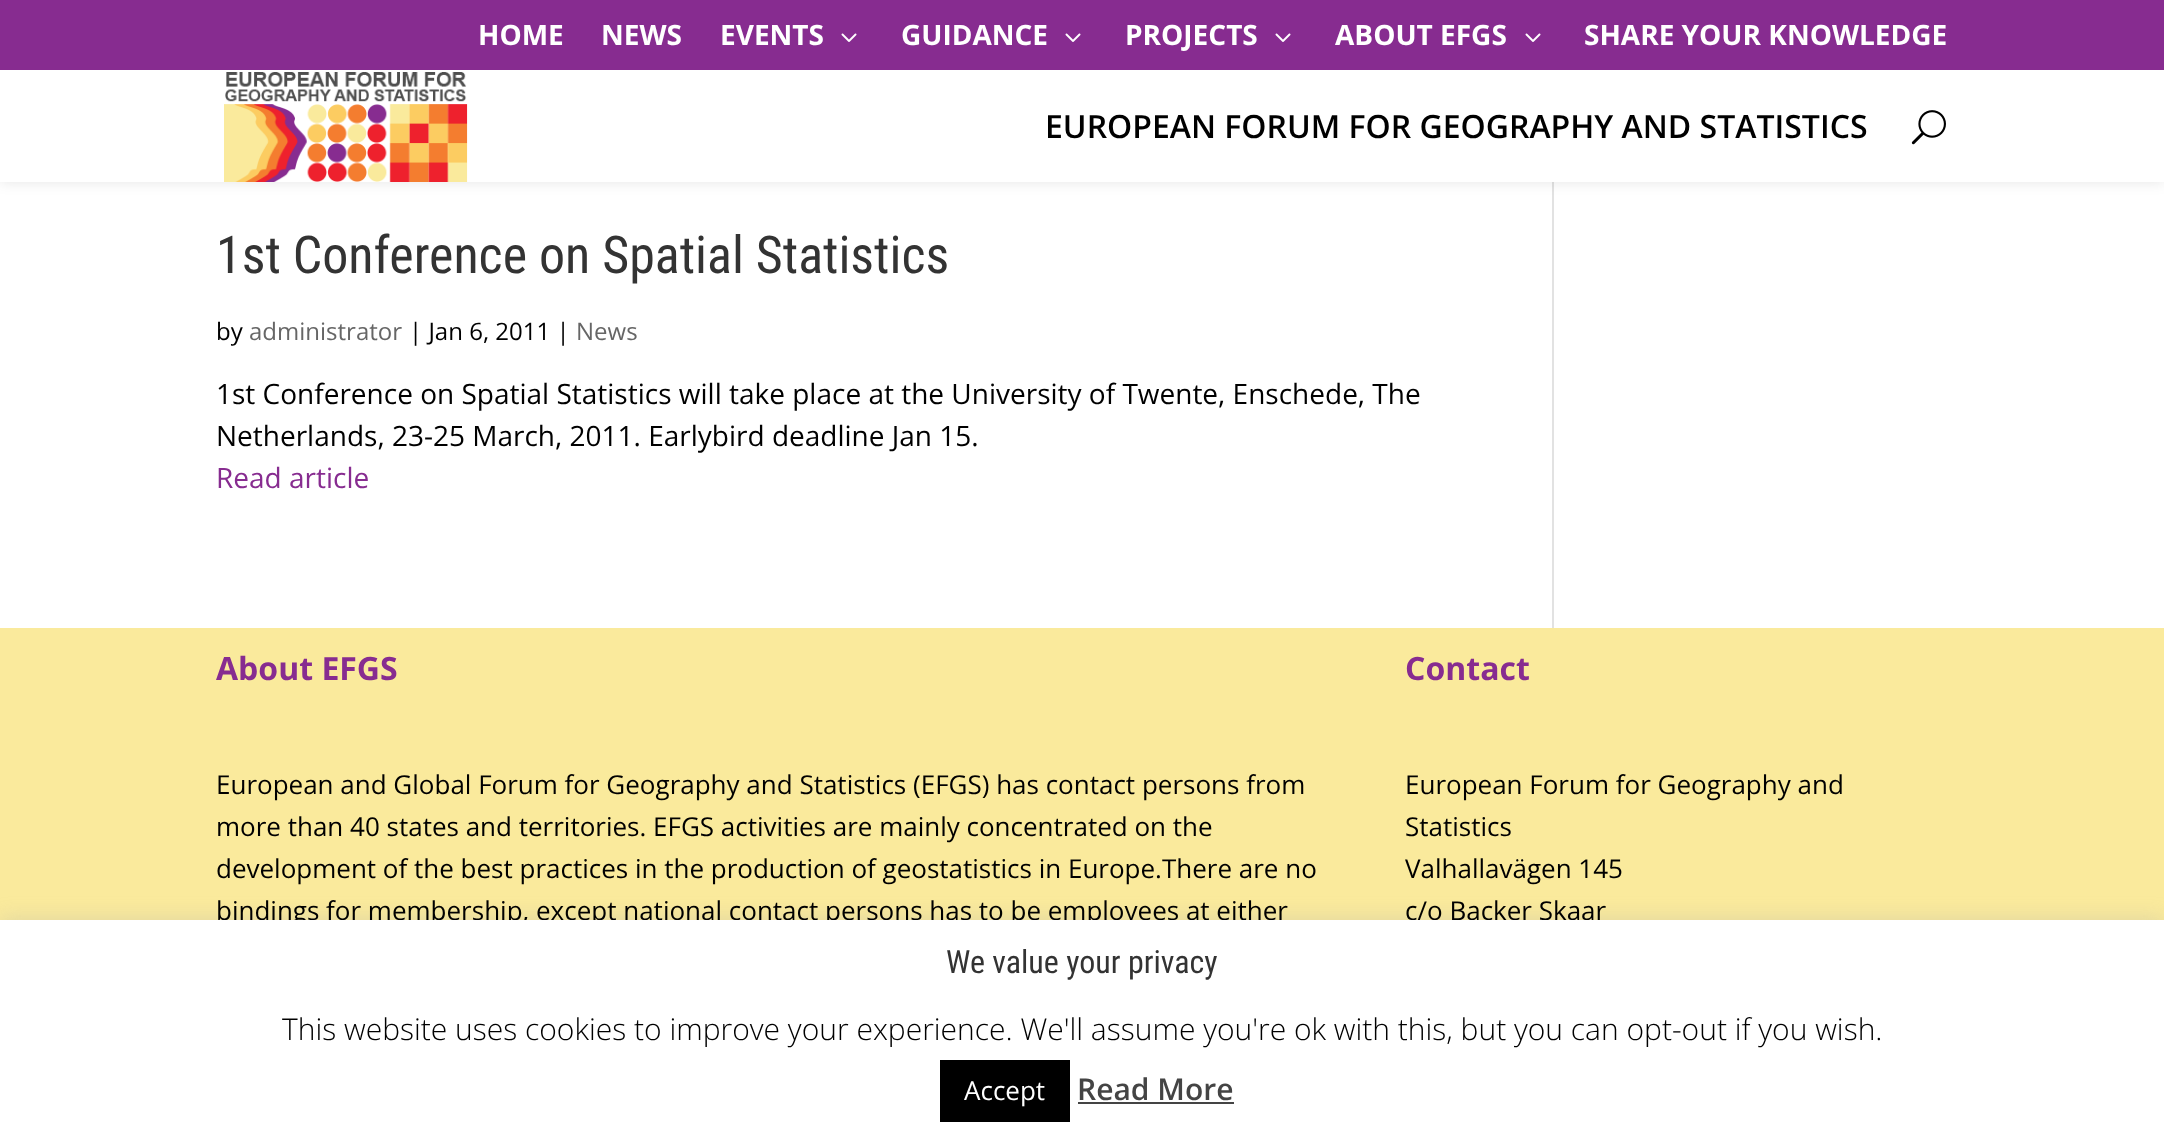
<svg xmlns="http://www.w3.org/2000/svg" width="2164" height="1146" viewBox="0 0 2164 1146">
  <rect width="100%" height="100%" fill="#fff"/>
  <path d="M1552 182h2v446H1552z" fill="#e2e2e2"/>
  <path d="M0 70h2164v112H0z" fill="#0000001a" filter="blur(7px)"/>
  <path d="M0 0h2164v70H0z" fill="#872c90"/>
  <image x="841" y="33" width="16" height="9" href="img/1.png"/>
  <image x="1065" y="33" width="16" height="9" href="img/1.png"/>
  <image x="1275" y="33" width="16" height="9" href="img/1.png"/>
  <image x="1525" y="33" width="16" height="9" href="img/1.png"/>
  <path d="M0 70h2164v112H0z" fill="#fff"/>
  <image x="224" y="72" width="244" height="110" href="img/2.png"/>
  <image x="1911" y="110" width="35" height="35" href="img/3.png"/>
  <path d="M0 628h2164v292H0z" fill="#faea9c"/>
  <path d="M0 918h2164v226H0z" fill="#acabab4d" filter="blur(10px)"/>
  <g font-family="Open Sans" font-size="28" font-weight="bold" fill="#fff">
    <text x="478" y="45">HOME</text>
    <text x="601" y="45">NEWS</text>
    <text x="720" y="45">EVENTS</text>
    <text x="901" y="45">GUIDANCE</text>
    <text x="1125" y="45">PROJECTS</text>
    <text x="1335" y="45">ABOUT EFGS</text>
    <text x="1584" y="45">SHARE YOUR KNOWLEDGE</text>
  </g>
  <text x="1045" y="138" font-family="Open Sans" font-size="32" font-weight="600" fill="#000">EUROPEAN FORUM FOR GEOGRAPHY AND STATISTICS</text>
  <text x="216" y="273" font-family="Roboto Condensed" font-size="52" fill="#333">1st Conference on Spatial Statistics</text>
  <text x="216" y="340" font-family="Open Sans" font-size="24" fill="#000">by</text>
  <text x="249" y="340" font-family="Open Sans" font-size="24" fill="#666">administrator</text>
  <text x="409" y="340" font-family="Open Sans" font-size="24" fill="#000">| Jan 6, 2011 |</text>
  <text x="576" y="340" font-family="Open Sans" font-size="24" fill="#666">News</text>
  <g font-family="Open Sans" font-size="28" fill="#000">
    <text x="216" y="404">1st Conference on Spatial Statistics will take place at the University of Twente, Enschede, The</text>
    <text x="216" y="446">Netherlands, 23-25 March, 2011. Earlybird deadline Jan 15.</text>
  </g>
  <text x="216" y="488" font-family="Open Sans" font-size="28" fill="#872c90">Read article</text>
  <text x="216" y="680" font-family="Open Sans" font-size="32" font-weight="bold" fill="#872c90">About EFGS</text>
  <g font-family="Open Sans" font-size="26" fill="#000">
    <text x="216" y="794">European and Global Forum for Geography and Statistics (EFGS) has contact persons from</text>
    <text x="216" y="836">more than 40 states and territories. EFGS activities are mainly concentrated on the</text>
    <text x="216" y="878">development of the best practices in the production of geostatistics in Europe.There are no</text>
    <text x="216" y="920">bindings for membership, except national contact persons has to be employees at either</text>
  </g>
  <text x="1405" y="680" font-family="Open Sans" font-size="32" font-weight="bold" fill="#872c90">Contact</text>
  <g font-family="Open Sans" font-size="26" fill="#000">
    <text x="1405" y="794">European Forum for Geography and</text>
    <text x="1405" y="836">Statistics</text>
    <text x="1405" y="878">Valhallavägen 145</text>
    <text x="1405" y="920">c/o Backer Skaar</text>
  </g>
  <path d="M0 920h2164v226H0z" fill="#fff"/>
  <text x="946" y="973" font-family="Roboto Condensed" font-size="32" fill="#333">We value your privacy</text>
  <text x="282" y="1040" font-family="Open Sans" font-size="30" font-weight="300" fill="#000">This website uses cookies to improve your experience. We'll assume you're ok with this, but you can opt-out if you wish.</text>
  <path d="M940 1060h130v62H940z" fill="#000"/>
  <text x="964" y="1100" font-family="Open Sans" font-size="26" fill="#fff">Accept</text>
  <text x="1077" y="1100" font-family="Open Sans" font-size="30" font-weight="600" fill="#444">Read More</text>
  <path d="M1078 1102h156v2H1078z" fill="#444"/>
</svg>
